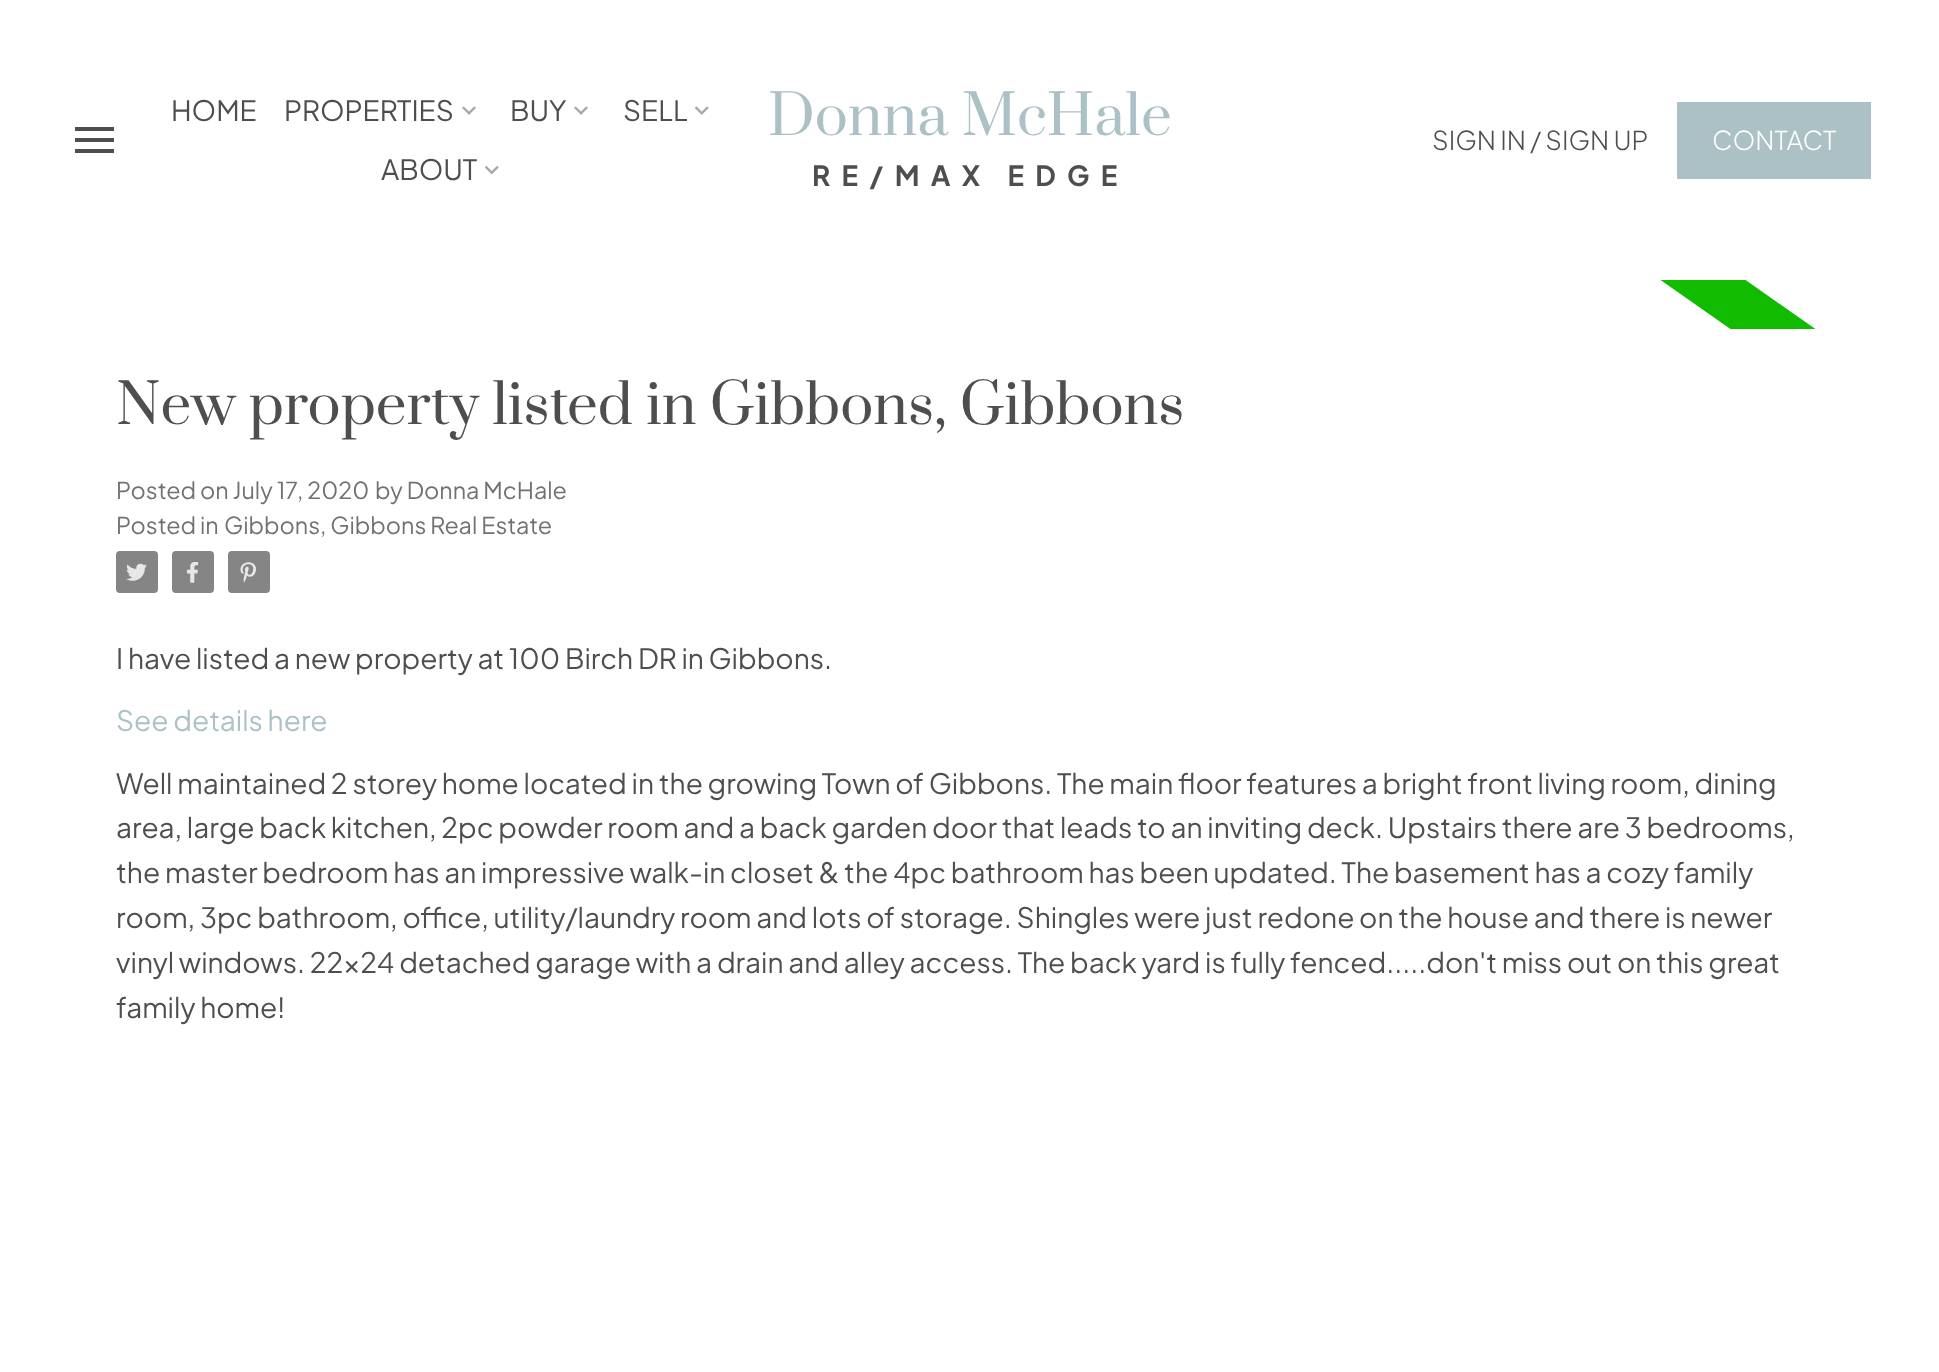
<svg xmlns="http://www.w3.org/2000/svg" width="1939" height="1372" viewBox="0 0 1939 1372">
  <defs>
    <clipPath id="clip1"><path d="M0 280h1939v49H0z"/></clipPath>
  </defs>
  <rect width="100%" height="100%" fill="#fff"/>
  <path d="M75 153H114V149H75ZM75 142H114V138H75ZM75 127V131H114V127Z" fill="#4e4e4e"/>
  <image x="462" y="106" width="14" height="9" href="img/1.png"/>
  <image x="574" y="106" width="14" height="9" href="img/1.png"/>
  <image x="694" y="106" width="15" height="9" href="img/2.png"/>
  <image x="484" y="165" width="15" height="10" href="img/3.png"/>
  <path d="M1677 102h194v77H1677z" fill="#abc1c6"/>
  <g clip-path="url(#clip1)">
    <path d="M1660 220L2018 471L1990 511L1632 260Z" fill="#1b0"/>
  </g>
  <rect x="116" y="551" width="42" height="42" rx="4" fill="#858585"/>
  <image x="126" y="563" width="21" height="18" href="img/4.png"/>
  <rect x="172" y="551" width="42" height="42" rx="4" fill="#858585"/>
  <image x="186" y="562" width="13" height="21" href="img/5.png"/>
  <rect x="228" y="551" width="42" height="42" rx="4" fill="#858585"/>
  <image x="240" y="562" width="16" height="21" href="img/6.png"/>
  <g font-family="Plus Jakarta Sans" font-size="28" fill="#4e4e4e">
    <text x="171" y="121">HOME</text>
    <text x="284" y="121">PROPERTIES</text>
    <text x="510" y="121">BUY</text>
    <text x="623" y="121">SELL</text>
    <text x="381" y="180">ABOUT</text>
  </g>
  <text x="768" y="135" font-family="Prata" font-size="54.75" fill="#abc1c6">Donna McHale</text>
  <text x="812" y="186" font-family="Plus Jakarta Sans" font-size="27.75" font-weight="bold" letter-spacing="11.25" fill="#4e4e4e">RE/MAX EDGE</text>
  <text x="1432" y="150" font-family="Plus Jakarta Sans" font-size="26" font-weight="300" fill="#4e4e4e">SIGN IN / SIGN UP</text>
  <text x="1712" y="150" font-family="Plus Jakarta Sans" font-size="26" font-weight="300" fill="#fff">CONTACT</text>
  <text x="116" y="424" font-family="Prata" font-size="54.75" fill="#4e4e4e">New property listed in Gibbons, Gibbons</text>
  <g font-family="Plus Jakarta Sans" font-size="23.3" fill="#717171">
    <text x="116" y="499">Posted on July 17, 2020</text>
    <text x="375" y="499">by Donna McHale</text>
    <text x="116" y="534">Posted in</text>
    <text x="224" y="534">Gibbons, Gibbons Real Estate</text>
  </g>
  <text x="116" y="669" font-family="Plus Jakarta Sans" font-size="28" fill="#4e4e4e">I have listed a new property at 100 Birch DR in Gibbons.</text>
  <text x="116" y="731" font-family="Plus Jakarta Sans" font-size="28" fill="#abc1c6">See details here</text>
  <g font-family="Plus Jakarta Sans" font-size="28" fill="#4e4e4e">
    <text x="116" y="794">Well maintained 2 storey home located in the growing Town of Gibbons. The main floor features a bright front living room, dining</text>
    <text x="116" y="838">area, large back kitchen, 2pc powder room and a back garden door that leads to an inviting deck. Upstairs there are 3 bedrooms,</text>
    <text x="116" y="883">the master bedroom has an impressive walk-in closet &amp; the 4pc bathroom has been updated. The basement has a cozy family</text>
    <text x="116" y="928">room, 3pc bathroom, office, utility/laundry room and lots of storage. Shingles were just redone on the house and there is newer</text>
    <text x="116" y="973">vinyl windows. 22x24 detached garage with a drain and alley access. The back yard is fully fenced.....don't miss out on this great</text>
    <text x="116" y="1018">family home!</text>
  </g>
</svg>
